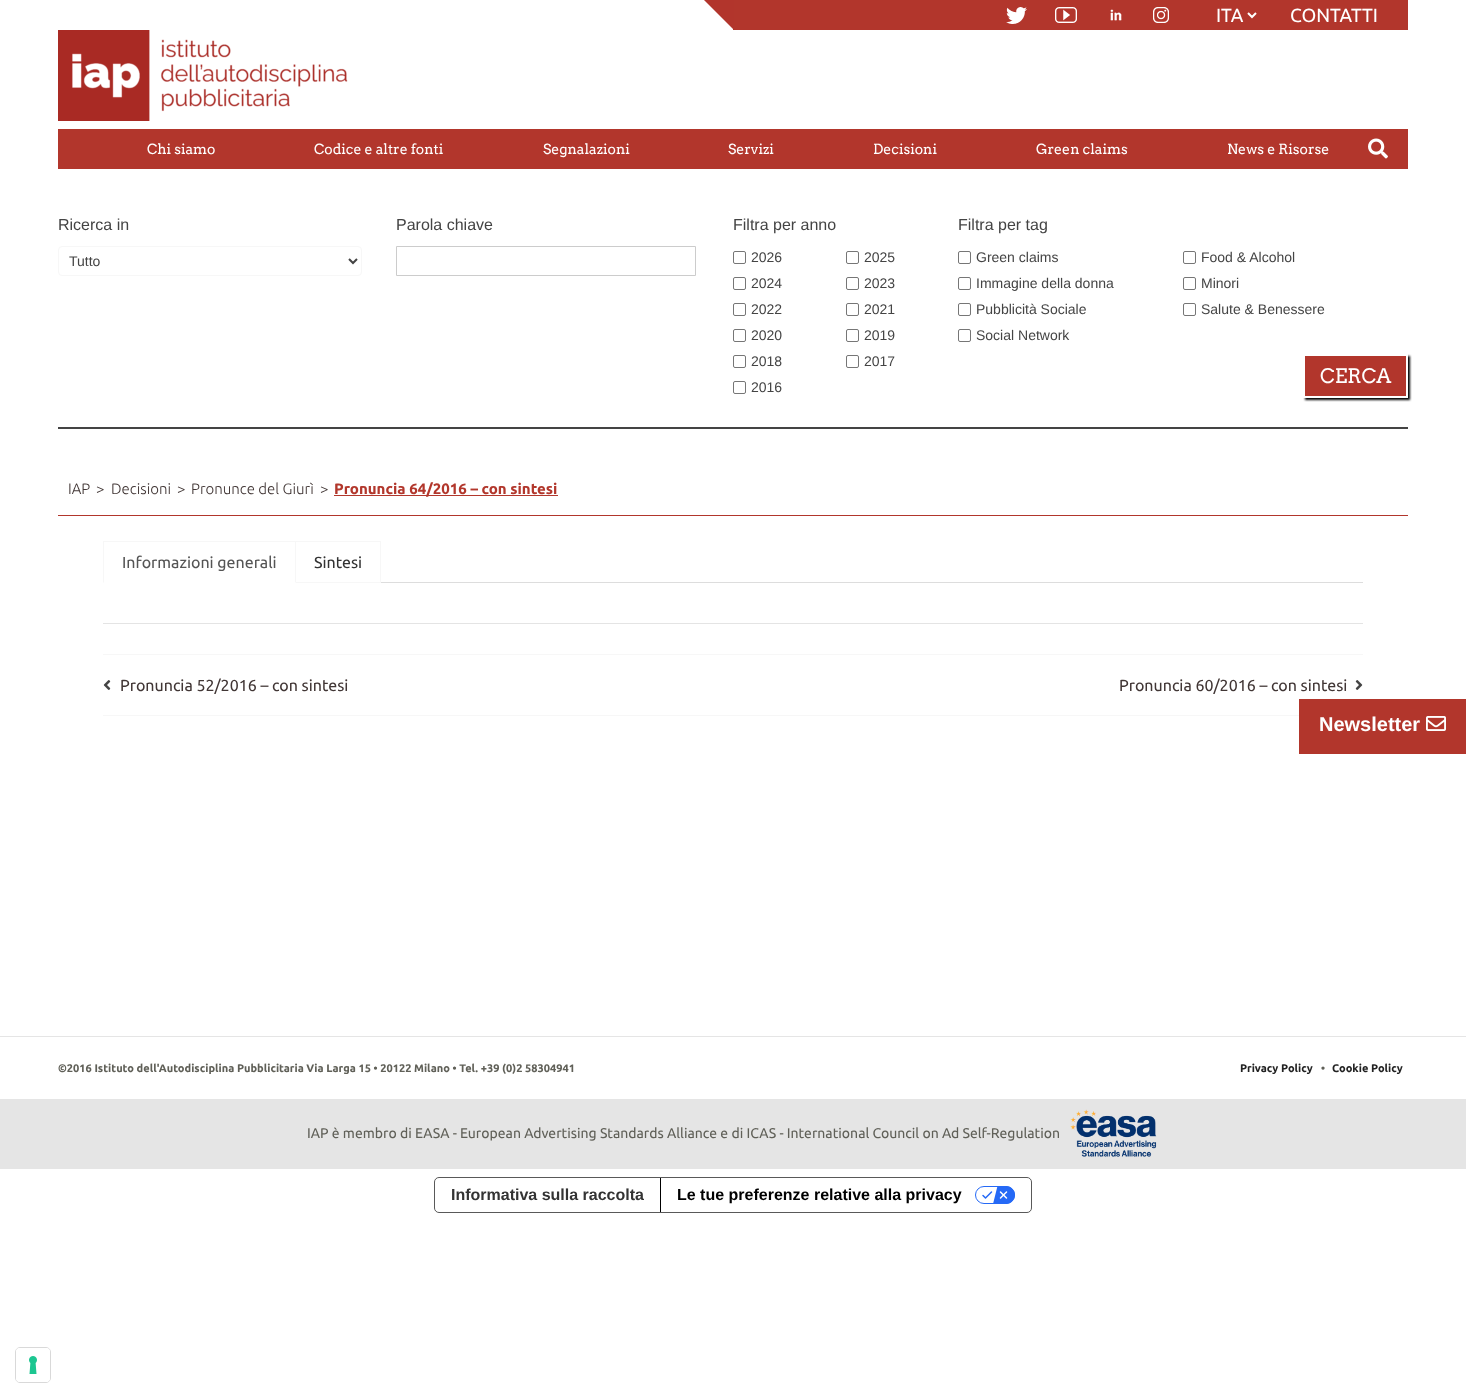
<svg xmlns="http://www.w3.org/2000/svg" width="1466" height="1398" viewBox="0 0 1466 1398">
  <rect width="100%" height="100%" fill="#fff"/>
  <path d="M733 0h675v30H733z" fill="#b2362c"/>
  <path d="M734 0V30L704 0Z" fill="#b2352c"/>
  <image x="1006" y="7" width="21" height="17" href="img/1.png"/>
  <image x="1055" y="7" width="22" height="16" href="img/2.png"/>
  <image x="1110" y="9" width="12" height="12" href="img/3.png"/>
  <image x="1153" y="7" width="16" height="16" href="img/4.png"/>
  <path d="M1248 13L1252 17L1256 13" fill="none" stroke="#fff" stroke-width="2"/>
  <image x="58" y="30" width="290" height="91" href="img/5.png"/>
  <path d="M58 129h1350v40H58z" fill="#b2362c"/>
  <image x="1368" y="138" width="20" height="21" href="img/6.png"/>
  <path d="M58 427h1350v2H58z" fill="#444"/>
  <rect x="58.5" y="246.5" width="303" height="29" rx="3.5" fill="none" stroke="#f7f7f7"/>
  <path d="M349 259L353 263L357 259" fill="none" stroke="#444" stroke-width="2"/>
  <path d="M396.5 246.5h299v29H396.5z" fill="none" stroke="#ccc"/>
  <rect x="733.5" y="251.5" width="12" height="12" rx="1.5" fill="none" stroke="#767676"/>
  <rect x="846.5" y="251.5" width="12" height="12" rx="1.5" fill="none" stroke="#767676"/>
  <rect x="733.5" y="277.5" width="12" height="12" rx="1.5" fill="none" stroke="#767676"/>
  <rect x="846.5" y="277.5" width="12" height="12" rx="1.5" fill="none" stroke="#767676"/>
  <rect x="733.5" y="303.5" width="12" height="12" rx="1.5" fill="none" stroke="#767676"/>
  <rect x="846.5" y="303.5" width="12" height="12" rx="1.5" fill="none" stroke="#767676"/>
  <rect x="733.5" y="329.5" width="12" height="12" rx="1.5" fill="none" stroke="#767676"/>
  <rect x="846.5" y="329.5" width="12" height="12" rx="1.5" fill="none" stroke="#767676"/>
  <rect x="733.5" y="355.5" width="12" height="12" rx="1.5" fill="none" stroke="#767676"/>
  <rect x="846.5" y="355.5" width="12" height="12" rx="1.5" fill="none" stroke="#767676"/>
  <rect x="733.5" y="381.5" width="12" height="12" rx="1.5" fill="none" stroke="#767676"/>
  <rect x="958.5" y="251.5" width="12" height="12" rx="1.5" fill="none" stroke="#767676"/>
  <rect x="1183.5" y="251.5" width="12" height="12" rx="1.5" fill="none" stroke="#767676"/>
  <rect x="958.5" y="277.5" width="12" height="12" rx="1.5" fill="none" stroke="#767676"/>
  <rect x="1183.5" y="277.5" width="12" height="12" rx="1.5" fill="none" stroke="#767676"/>
  <rect x="958.5" y="303.5" width="12" height="12" rx="1.5" fill="none" stroke="#767676"/>
  <rect x="1183.5" y="303.5" width="12" height="12" rx="1.5" fill="none" stroke="#767676"/>
  <rect x="958.5" y="329.5" width="12" height="12" rx="1.5" fill="none" stroke="#767676"/>
  <path d="M1305 356h105v44H1305z" fill="#000" filter="blur(1px)"/>
  <path d="M1304 355h103v42H1304z" fill="#b2362c" stroke="#fff" stroke-width="2"/>
  <path d="M58 515h1350v1H58z" fill="#b2362c"/>
  <path d="M334 495h224v1H334z" fill="#b2372c"/>
  <path d="M381 582h982v1H381z" fill="#ddd"/>
  <path d="M103 541h278v1H103z" fill="#f7f7f7"/>
  <path d="M296 541V583L295 582V542Z" fill="#f7f7f7"/>
  <path d="M103 583V541L104 542V582Z" fill="#f7f7f7"/>
  <path d="M380 541h1v42H380z" fill="#f7f7f7"/>
  <path d="M296 582h85v1H296z" fill="#f7f7f7"/>
  <path d="M103 623h1260v1H103z" fill="#e4e4e4"/>
  <path d="M103 654h1260v1H103z" fill="#f7f7f7"/>
  <path d="M103 715h1196v1H103z" fill="#f7f7f7"/>
  <image x="103" y="680" width="8" height="10" href="img/7.png"/>
  <image x="1355" y="680" width="8" height="10" href="img/8.png"/>
  <path d="M1299 699h167v55H1299z" fill="#b2362c"/>
  <image x="1426" y="716" width="20" height="15" href="img/9.png"/>
  <path d="M0 1036h1466v1H0z" fill="#e5e5e5"/>
  <path d="M0 1099h1466v70H0z" fill="#e5e5e5"/>
  <image x="1070" y="1109" width="87" height="48" href="img/10.png"/>
  <rect x="434.5" y="1177.5" width="597" height="35" rx="4.5" fill="none" stroke="#595959"/>
  <path d="M660 1178h1v34H660z" fill="#000"/>
  <image x="975" y="1186" width="40" height="18" href="img/11.png"/>
  <rect x="15.5" y="1347.5" width="35" height="35" rx="4.5" fill="none" stroke="#d9d9d9"/>
  <rect x="16" y="1348" width="34" height="34" rx="4" fill="#fff"/>
  <image x="29" y="1356" width="8" height="18" href="img/12.png"/>
  <g font-family="Ubuntu" font-size="19" fill="#fff">
    <text x="1216" y="22">ITA</text>
    <text x="1290" y="22">CONTATTI</text>
  </g>
  <g font-family="Arvo" font-size="14" fill="#fff">
    <text x="147" y="154">Chi siamo</text>
    <text x="314" y="154">Codice e altre fonti</text>
    <text x="543" y="154">Segnalazioni</text>
    <text x="728" y="154">Servizi</text>
    <text x="873" y="154">Decisioni</text>
    <text x="1036" y="154">Green claims</text>
    <text x="1227" y="154">News e Risorse</text>
  </g>
  <text x="58" y="230" font-family="Liberation Sans" font-size="16" fill="#444">Ricerca in</text>
  <text x="69" y="266" font-family="Liberation Sans" font-size="14" fill="#444">Tutto</text>
  <g font-family="Liberation Sans" font-size="16" fill="#444">
    <text x="396" y="230">Parola chiave</text>
    <text x="733" y="230">Filtra per anno</text>
  </g>
  <g font-family="Liberation Sans" font-size="14" fill="#444">
    <text x="751" y="262">2026</text>
    <text x="864" y="262">2025</text>
    <text x="751" y="288">2024</text>
    <text x="864" y="288">2023</text>
    <text x="751" y="314">2022</text>
    <text x="864" y="314">2021</text>
    <text x="751" y="340">2020</text>
    <text x="864" y="340">2019</text>
    <text x="751" y="366">2018</text>
    <text x="864" y="366">2017</text>
    <text x="751" y="392">2016</text>
  </g>
  <text x="958" y="230" font-family="Liberation Sans" font-size="16" fill="#444">Filtra per tag</text>
  <g font-family="Liberation Sans" font-size="14" fill="#444">
    <text x="976" y="262">Green claims</text>
    <text x="1201" y="262">Food &amp; Alcohol</text>
    <text x="976" y="288">Immagine della donna</text>
    <text x="1201" y="288">Minori</text>
    <text x="976" y="314">Pubblicità Sociale</text>
    <text x="1201" y="314">Salute &amp; Benessere</text>
    <text x="976" y="340">Social Network</text>
  </g>
  <text x="1320" y="383" font-family="Arvo" font-size="20" fill="#fff">CERCA</text>
  <g font-family="Ubuntu" font-size="15" font-weight="300" fill="#413635">
    <text x="68" y="494">IAP</text>
    <text x="96" y="494">&gt;</text>
    <text x="111" y="494">Decisioni</text>
    <text x="177" y="494">&gt;</text>
    <text x="191" y="494">Pronunce del Giurì</text>
    <text x="320" y="494">&gt;</text>
  </g>
  <text x="334" y="494" font-family="Ubuntu" font-size="15" font-weight="bold" fill="#b2372c">Pronuncia 64/2016 – con sintesi</text>
  <text x="122" y="568" font-family="Ubuntu" font-size="16" fill="#555">Informazioni generali</text>
  <text x="314" y="568" font-family="Ubuntu" font-size="16" fill="#333">Sintesi</text>
  <g font-family="Ubuntu" font-size="16" fill="#413635">
    <text x="120" y="691">Pronuncia 52/2016 – con sintesi</text>
    <text x="1119" y="691">Pronuncia 60/2016 – con sintesi</text>
  </g>
  <text x="1319" y="731" font-family="Liberation Sans" font-size="20" font-weight="bold" fill="#fff">Newsletter</text>
  <text x="58" y="1072" font-family="Ubuntu" font-size="11" font-weight="bold" fill="#606058">©2016 Istituto dell'Autodisciplina Pubblicitaria Via Larga 15 • 20122 Milano • Tel. +39 (0)2 58304941</text>
  <text x="1240" y="1072" font-family="Ubuntu" font-size="11" font-weight="bold" fill="#222">Privacy Policy</text>
  <text x="1321" y="1072" font-family="Ubuntu" font-size="11" font-weight="bold" fill="#606058">•</text>
  <text x="1332" y="1072" font-family="Ubuntu" font-size="11" font-weight="bold" fill="#222">Cookie Policy</text>
  <text x="307" y="1138" font-family="Ubuntu" font-size="14" fill="#606058">IAP è membro di EASA - European Advertising Standards Alliance e di ICAS - International Council on Ad Self-Regulation</text>
  <text x="451" y="1200" font-family="Liberation Sans" font-size="16" font-weight="bold" fill="#333">Informativa sulla raccolta</text>
  <text x="677" y="1200" font-family="Liberation Sans" font-size="16" font-weight="bold" fill="#000">Le tue preferenze relative alla privacy</text>
</svg>
